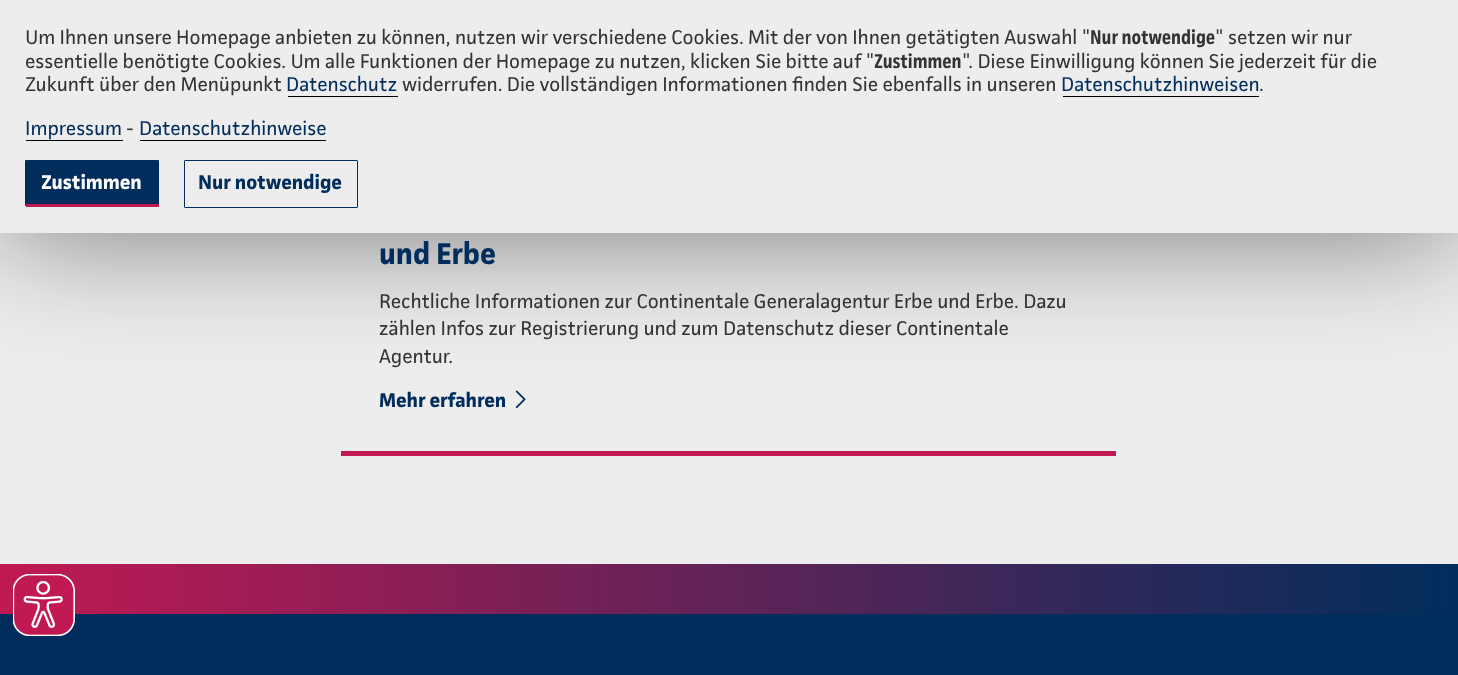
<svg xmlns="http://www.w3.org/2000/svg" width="1458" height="675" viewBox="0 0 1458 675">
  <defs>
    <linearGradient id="g1" gradientUnits="userSpaceOnUse" x1="0" y1="589" x2="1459" y2="589"><stop offset="0" stop-color="#c01953"/><stop offset="1" stop-color="#002d5c"/></linearGradient>
  </defs>
  <rect width="100%" height="100%" fill="#ededed"/>
  <image x="515" y="390" width="11" height="19" href="img/1.png"/>
  <path d="M0 0h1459v233H0z" fill="#00000080" filter="blur(62.5px)"/>
  <path d="M0 0h1458v233H0z" fill="#ededed"/>
  <path d="M288 96h110v1H288z" fill="#000"/>
  <path d="M1063 96h196v1H1063z" fill="#000"/>
  <path d="M26 140h97v1H26z" fill="#000"/>
  <path d="M140 140h186v1H140z" fill="#000"/>
  <rect x="25" y="160" width="134" height="46" rx="1" fill="#002d5c"/>
  <path d="M26 204h133v3H26z" fill="#c01953"/>
  <rect x="184.5" y="160.5" width="173" height="47" rx="0.5" fill="none" stroke="#002d5c"/>
  <path d="M341 451h775v5H341z" fill="#c01953"/>
  <path d="M0 614h1458v61H0z" fill="#002d5c"/>
  <path d="M0 564h1458v50H0z" fill="url(#g1)"/>
  <image x="13" y="574" width="62" height="62" href="img/2.png"/>
  <text x="25" y="44" font-family="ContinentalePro" font-size="20" fill="#333">Um Ihnen unsere Homepage anbieten zu können, nutzen wir verschiedene Cookies. Mit der von Ihnen getätigten Auswahl "</text>
  <text x="1090" y="44" font-family="'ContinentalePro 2'" font-size="20" font-weight="bold" fill="#333">Nur notwendige</text>
  <g font-family="ContinentalePro" font-size="20" fill="#333">
    <text x="1215" y="44">" setzen wir nur</text>
    <text x="25" y="68">essentielle benötigte Cookies. Um alle Funktionen der Homepage zu nutzen, klicken Sie bitte auf "</text>
  </g>
  <text x="874" y="68" font-family="'ContinentalePro 2'" font-size="20" font-weight="bold" fill="#333">Zustimmen</text>
  <g font-family="ContinentalePro" font-size="20" fill="#333">
    <text x="962" y="68">". Diese Einwilligung können Sie jederzeit für die</text>
    <text x="25" y="91">Zukunft über den Menüpunkt</text>
  </g>
  <text x="286" y="91" font-family="ContinentalePro" font-size="20" fill="#002d5c">Datenschutz</text>
  <text x="402" y="91" font-family="ContinentalePro" font-size="20" fill="#333">widerrufen. Die vollständigen Informationen finden Sie ebenfalls in unseren</text>
  <text x="1061" y="91" font-family="ContinentalePro" font-size="20" fill="#002d5c">Datenschutzhinweisen</text>
  <text x="1259" y="91" font-family="ContinentalePro" font-size="20" fill="#333">.</text>
  <text x="25" y="135" font-family="ContinentalePro" font-size="20" fill="#002d5c">Impressum</text>
  <text x="126" y="135" font-family="ContinentalePro" font-size="20" fill="#333">-</text>
  <text x="139" y="135" font-family="ContinentalePro" font-size="20" fill="#002d5c">Datenschutzhinweise</text>
  <text x="41" y="189" font-family="ContinentalePro" font-size="20" font-weight="bold" fill="#fff">Zustimmen</text>
  <text x="198" y="189" font-family="ContinentalePro" font-size="20" font-weight="bold" fill="#002d5c">Nur notwendige</text>
  <text x="379" y="264" font-family="ContinentalePro" font-size="30" font-weight="bold" fill="#002d5c">und Erbe</text>
  <g font-family="ContinentalePro" font-size="20" fill="#333">
    <text x="379" y="308">Rechtliche Informationen zur Continentale Generalagentur Erbe und Erbe. Dazu</text>
    <text x="379" y="335">zählen Infos zur Registrierung und zum Datenschutz dieser Continentale</text>
    <text x="379" y="363">Agentur.</text>
  </g>
  <text x="379" y="407" font-family="ContinentalePro" font-size="20" font-weight="bold" fill="#002d5c">Mehr erfahren</text>
</svg>
